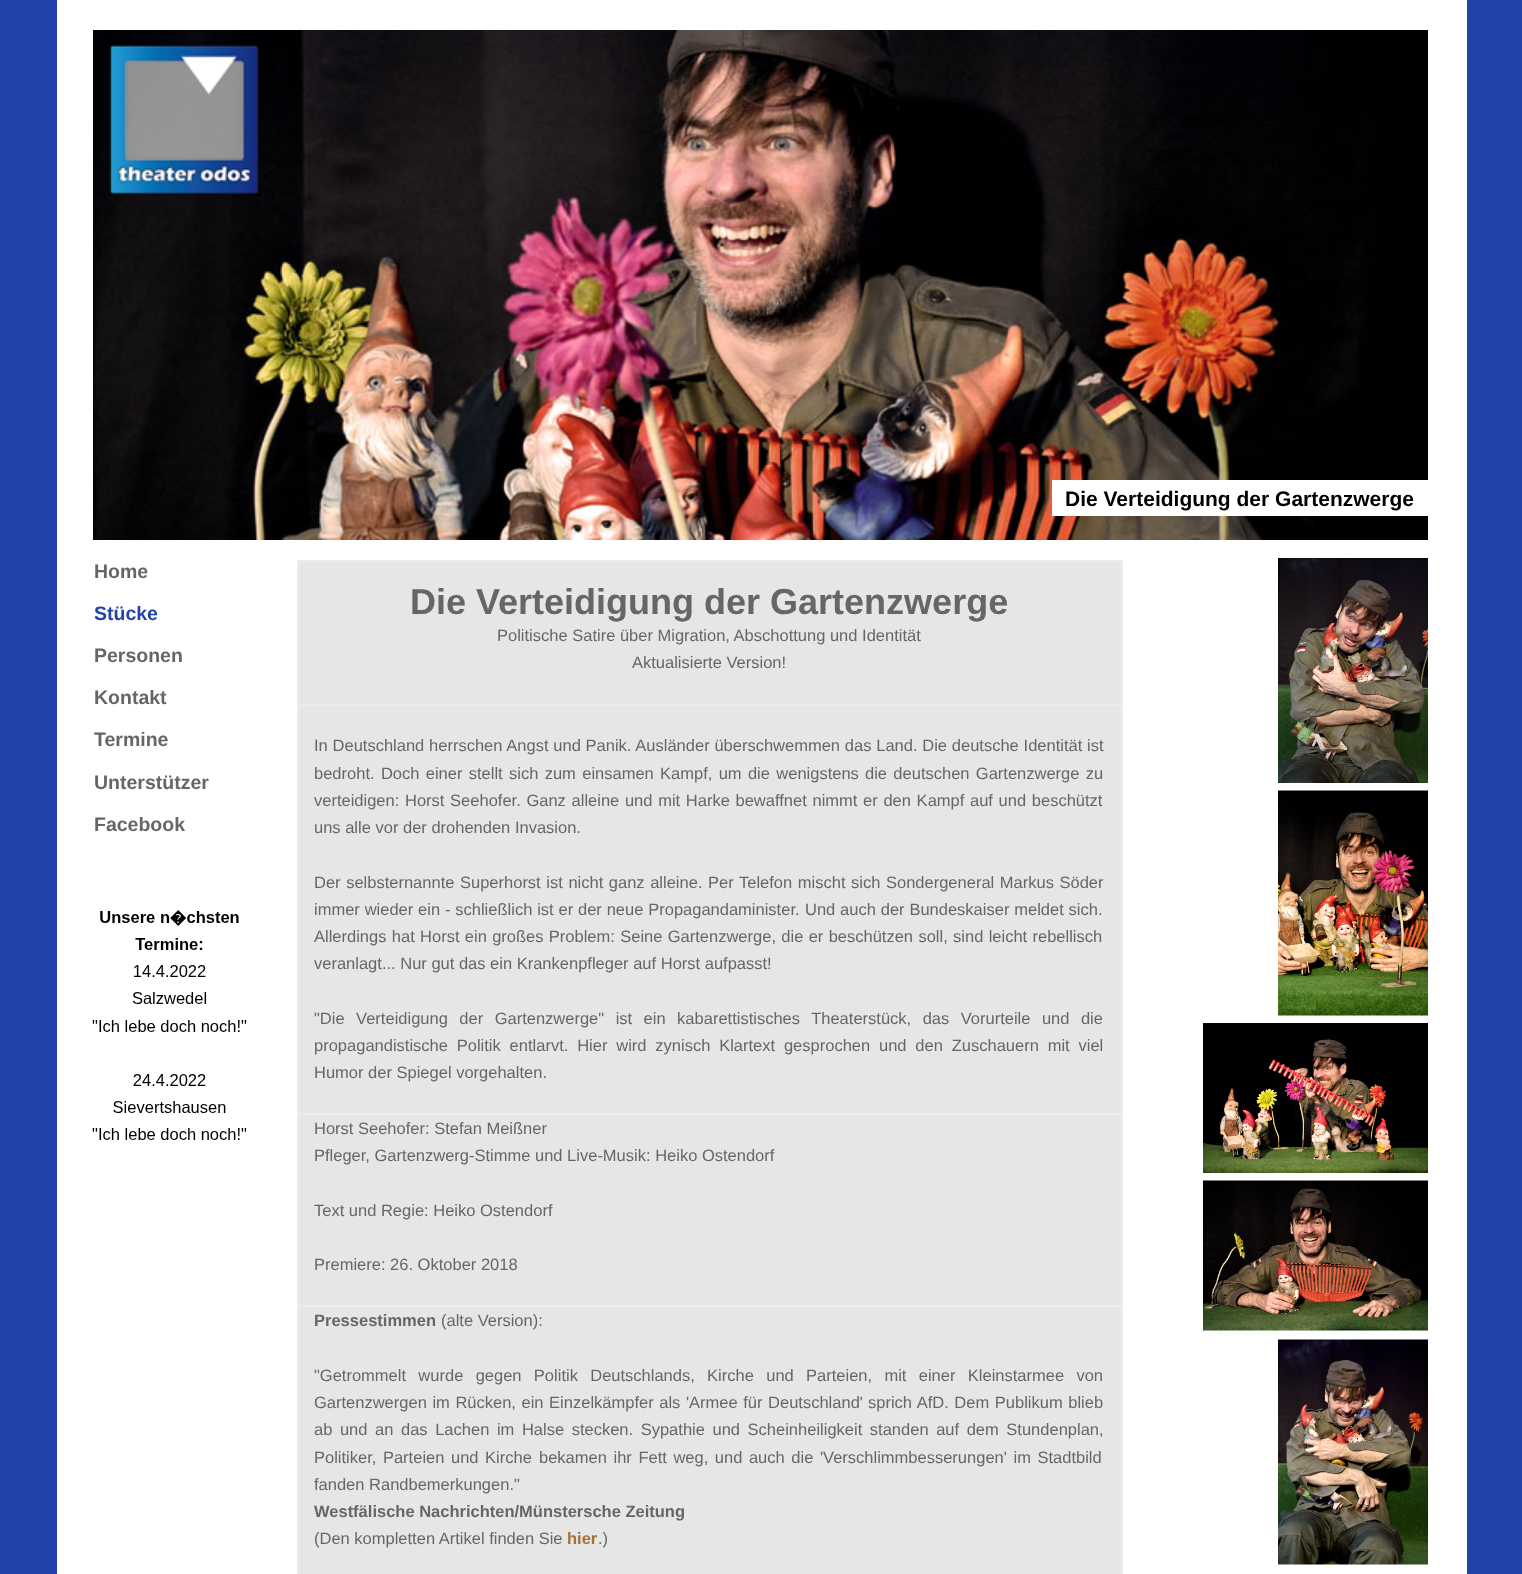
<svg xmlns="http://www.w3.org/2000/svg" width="1522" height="1574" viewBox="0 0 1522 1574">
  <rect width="100%" height="100%" fill="#24a"/>
  <path d="M57 0h1410v1574H57z" fill="#fff"/>
  <image x="93" y="30" width="1335" height="510" href="img/1.png"/>
  <image x="109" y="45" width="150" height="150" href="img/2.png"/>
  <path d="M1052 480h376v36H1052z" fill="#fff"/>
  <image x="92" y="910" width="155" height="230" href="img/3.png"/>
  <path d="M299 562h822v142H299z" fill="#e6e6e6"/>
  <path d="M297 560h825v2H297z" fill="#ececec"/>
  <path d="M297 704h825v2H297z" fill="#ececec"/>
  <path d="M297 1113h825v2H297z" fill="#ececec"/>
  <path d="M297 1305h825v2H297z" fill="#ececec"/>
  <path d="M1121 1305h2v269H1121z" fill="#ececec"/>
  <path d="M1121 1113h2v194H1121z" fill="#ececec"/>
  <path d="M1121 704h2v411H1121z" fill="#ececec"/>
  <path d="M1121 560h2v145H1121z" fill="#ececec"/>
  <path d="M297 1305h2v269H297z" fill="#ececec"/>
  <path d="M297 1113h2v194H297z" fill="#ececec"/>
  <path d="M297 704h2v411H297z" fill="#ececec"/>
  <path d="M297 560h2v145H297z" fill="#ececec"/>
  <path d="M299 706h822v407H299z" fill="#e6e6e6"/>
  <path d="M299 1115h822v190H299z" fill="#e6e6e6"/>
  <path d="M299 1307h822v267H299z" fill="#e6e6e6"/>
  <image x="1278" y="558" width="150" height="225" href="img/4.png"/>
  <image x="1278" y="790" width="150" height="226" href="img/5.png"/>
  <image x="1203" y="1023" width="225" height="150" href="img/6.png"/>
  <image x="1203" y="1180" width="225" height="151" href="img/7.png"/>
  <image x="1278" y="1339" width="150" height="226" href="img/8.png"/>
  <text x="1065" y="506" font-family="Liberation Sans" font-size="21" font-weight="bold" fill="#000">Die Verteidigung der Gartenzwerge</text>
  <text x="94" y="578" font-family="Liberation Sans" font-size="19.5" font-weight="bold" fill="#666">Home</text>
  <text x="94" y="620" font-family="Liberation Sans" font-size="19.5" font-weight="bold" fill="#24a">Stücke</text>
  <g font-family="Liberation Sans" font-size="19.5" font-weight="bold" fill="#666">
    <text x="94" y="662">Personen</text>
    <text x="94" y="704">Kontakt</text>
    <text x="94" y="746">Termine</text>
    <text x="94" y="789">Unterstützer</text>
    <text x="94" y="831">Facebook</text>
  </g>
  <text x="410" y="614" font-family="Liberation Sans" font-size="36" font-weight="bold" fill="#666">Die Verteidigung der Gartenzwerge</text>
  <g font-family="Liberation Sans" font-size="16.5" fill="#666">
    <text x="497" y="641">Politische Satire über Migration, Abschottung und Identität</text>
    <text x="632" y="668">Aktualisierte Version!</text>
    <text x="314" y="751" word-spacing="0.2">In Deutschland herrschen Angst und Panik. Ausländer überschwemmen das Land. Die deutsche Identität ist</text>
    <text x="314" y="779" word-spacing="1.75">bedroht. Doch einer stellt sich zum einsamen Kampf, um die wenigstens</text>
    <text x="865" y="779" word-spacing="1.75">die deutschen Gartenzwerge zu</text>
    <text x="314" y="806" word-spacing="1.1">verteidigen: Horst Seehofer. Ganz alleine und mit Harke bewaffnet nimmt er den Kampf auf und beschützt</text>
    <text x="314" y="833">uns alle vor der drohenden Invasion.</text>
    <text x="314" y="888" word-spacing="1">Der selbsternannte Superhorst ist nicht ganz alleine. Per Telefon mischt sich Sondergeneral Markus Söder</text>
    <text x="314" y="915" word-spacing="0.25">immer wieder ein - schließlich ist er der neue Propagandaminister.</text>
    <text x="805" y="915" word-spacing="0.25">Und auch der Bundeskaiser meldet sich.</text>
    <text x="314" y="942" word-spacing="0.75">Allerdings hat Horst ein großes Problem: Seine Gartenzwerge, die er beschützen soll, sind leicht rebellisch</text>
    <text x="314" y="969">veranlagt... Nur gut das ein Krankenpfleger auf Horst aufpasst!</text>
    <text x="314" y="1024" word-spacing="6.9">"Die Verteidigung der Gartenzwerge" ist ein kabarettistisches Theaterstück, das Vorurteile und die</text>
    <text x="314" y="1051" word-spacing="4.25">propagandistische Politik entlarvt. Hier wird zynisch Klartext gesprochen</text>
    <text x="879" y="1051" word-spacing="4.25">und den Zuschauern mit viel</text>
    <text x="314" y="1078">Humor der Spiegel vorgehalten.</text>
    <text x="314" y="1134">Horst Seehofer: Stefan Meißner</text>
    <text x="314" y="1161">Pfleger, Gartenzwerg-Stimme und Live-Musik: Heiko Ostendorf</text>
    <text x="314" y="1216">Text und Regie: Heiko Ostendorf</text>
    <text x="314" y="1270">Premiere: 26. Oktober 2018</text>
  </g>
  <text x="314" y="1326" font-family="Liberation Sans" font-size="16.5" font-weight="bold" fill="#666">Pressestimmen</text>
  <g font-family="Liberation Sans" font-size="16.5" fill="#666">
    <text x="441" y="1326">(alte Version):</text>
    <text x="314" y="1381" word-spacing="7.75">"Getrommelt wurde gegen Politik Deutschlands, Kirche und Parteien, mit einer Kleinstarmee von</text>
    <text x="314" y="1408" word-spacing="1">Gartenzwergen im Rücken, ein Einzelkämpfer als 'Armee für Deutschland'</text>
    <text x="868" y="1408" word-spacing="1">sprich AfD. Dem Publikum blieb</text>
    <text x="314" y="1435" word-spacing="3">ab und an das Lachen im Halse stecken. Sypathie und Scheinheiligkeit standen auf dem Stundenplan,</text>
    <text x="314" y="1463" word-spacing="2">Politiker, Parteien und Kirche</text>
    <text x="539" y="1463" word-spacing="2">bekamen ihr Fett weg, und auch die 'Verschlimmbesserungen' im Stadtbild</text>
    <text x="314" y="1490">fanden Randbemerkungen."</text>
  </g>
  <text x="314" y="1517" font-family="Liberation Sans" font-size="16.5" font-weight="bold" fill="#666">Westfälische Nachrichten/Münstersche Zeitung</text>
  <text x="314" y="1544" font-family="Liberation Sans" font-size="16.5" fill="#666">(Den kompletten Artikel finden Sie</text>
  <text x="567" y="1544" font-family="Liberation Sans" font-size="16.5" font-weight="bold" fill="#a56f38">hier</text>
  <text x="598" y="1544" font-family="Liberation Sans" font-size="16.5" fill="#666">.)</text>
</svg>
